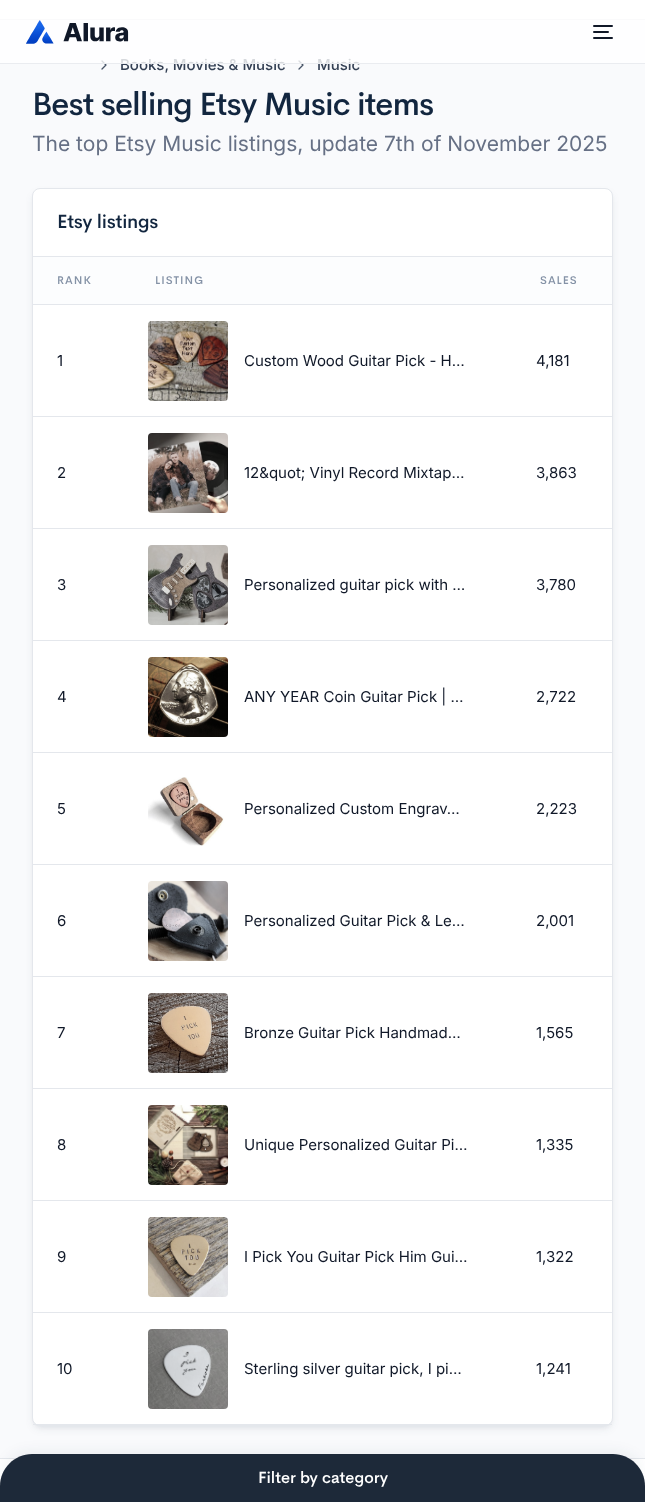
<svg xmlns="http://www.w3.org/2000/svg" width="645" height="1502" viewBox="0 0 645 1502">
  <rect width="100%" height="100%" fill="#fff"/>
  <path d="M0 20h645v1438H0z" fill="#f9fafc"/>
  <path d="M0 19h645v1H0z" fill="#e4e7ec"/>
  <path d="M0 1458h645v1H0z" fill="#e4e7ec"/>
  <path d="M102 69L106 65L102 61" fill="none" stroke="#475467" stroke-width="1.3" stroke-linecap="round" stroke-linejoin="round"/>
  <path d="M299 69L303 65L299 61" fill="none" stroke="#475467" stroke-width="1.3" stroke-linecap="round" stroke-linejoin="round"/>
  <rect x="34" y="194" width="577" height="1234" rx="6" fill="#12263f1a" filter="blur(4px)"/>
  <rect x="34" y="192" width="577" height="1234" rx="6" fill="#12263f0f" filter="blur(2px)"/>
  <rect x="32.5" y="188.5" width="580" height="1237" rx="7.5" fill="#fff" stroke="#e4e7ec"/>
  <path d="M33 256h579v1H33z" fill="#e4e7ec"/>
  <path d="M33 257h579v47H33z" fill="#fcfdfe"/>
  <path d="M33 304h579v1H33z" fill="#e4e7ec"/>
  <path d="M33 416h579v1H33z" fill="#e4e7ec"/>
  <image x="148" y="321" width="80" height="80" href="img/2.png"/>
  <path d="M33 528h579v1H33z" fill="#e4e7ec"/>
  <image x="148" y="433" width="80" height="80" href="img/3.png"/>
  <path d="M33 640h579v1H33z" fill="#e4e7ec"/>
  <image x="148" y="545" width="80" height="80" href="img/4.png"/>
  <path d="M33 752h579v1H33z" fill="#e4e7ec"/>
  <image x="148" y="657" width="80" height="80" href="img/5.png"/>
  <path d="M33 864h579v1H33z" fill="#e4e7ec"/>
  <image x="148" y="777" width="76" height="69" href="img/6.png"/>
  <path d="M33 976h579v1H33z" fill="#e4e7ec"/>
  <image x="148" y="881" width="80" height="80" href="img/7.png"/>
  <path d="M33 1088h579v1H33z" fill="#e4e7ec"/>
  <image x="148" y="993" width="80" height="80" href="img/8.png"/>
  <path d="M33 1200h579v1H33z" fill="#e4e7ec"/>
  <image x="148" y="1105" width="80" height="80" href="img/9.png"/>
  <path d="M33 1312h579v1H33z" fill="#e4e7ec"/>
  <image x="148" y="1217" width="80" height="80" href="img/10.png"/>
  <path d="M33 1424h579v1H33z" fill="#e4e7ec"/>
  <image x="148" y="1329" width="80" height="80" href="img/11.png"/>
  <rect x="4" y="1450" width="637" height="40" rx="28" fill="#12263f0d" filter="blur(6px)"/>
  <path d="M32 1454H613C630.5 1454 645 1468.5 645 1486V1502H0V1486C0 1468.5 14.5 1454 32 1454Z" fill="#1d2939"/>
  <g font-family="Inter" font-size="15" font-weight="500" fill="#344054">
    <text x="120" y="70">Books, Movies &amp; Music</text>
    <text x="317" y="70">Music</text>
  </g>
  <path d="M0 19h645v44H0z" fill="#ffffffcc"/>
  <path d="M594 32H608M594 26H612M594 38H612" fill="none" stroke="#101828" stroke-width="2" stroke-linecap="round" stroke-linejoin="round"/>
  <image x="26" y="20" width="103" height="24" href="img/1.png"/>
  <path d="M0 63h645v1H0z" fill="#eaecf0"/>
  <text x="32" y="115" font-family="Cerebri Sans" font-size="32" font-weight="500" letter-spacing="-0.95" fill="#12263f">Best selling Etsy Music items</text>
  <text x="32" y="151" font-family="Inter" font-size="21" fill="#667085">The top Etsy Music listings, update 7th of November 2025</text>
  <text x="57" y="228" font-family="Cerebri Sans" font-size="19" font-weight="500" letter-spacing="-0.25" fill="#12263f">Etsy listings</text>
  <g font-family="Cerebri Sans" font-size="11" font-weight="500" letter-spacing="1" fill="#8492a6">
    <text x="57" y="284">RANK</text>
    <text x="155" y="284">LISTING</text>
    <text x="540" y="284">SALES</text>
  </g>
  <g font-family="Inter" font-size="15" fill="#101828">
    <text x="57" y="366">1</text>
    <text x="244" y="366">Custom Wood Guitar Pick - H…</text>
    <text x="536" y="366">4,181</text>
    <text x="57" y="478">2</text>
    <text x="244" y="478">12&amp;quot; Vinyl Record Mixtap…</text>
    <text x="536" y="478">3,863</text>
    <text x="57" y="590">3</text>
    <text x="244" y="590">Personalized guitar pick with …</text>
    <text x="536" y="590">3,780</text>
    <text x="57" y="702">4</text>
    <text x="244" y="702">ANY YEAR Coin Guitar Pick | …</text>
    <text x="536" y="702">2,722</text>
    <text x="57" y="814">5</text>
    <text x="244" y="814">Personalized Custom Engrav…</text>
    <text x="536" y="814">2,223</text>
    <text x="57" y="926">6</text>
    <text x="244" y="926">Personalized Guitar Pick &amp; Le…</text>
    <text x="536" y="926">2,001</text>
    <text x="57" y="1038">7</text>
    <text x="244" y="1038">Bronze Guitar Pick Handmad…</text>
    <text x="536" y="1038">1,565</text>
    <text x="57" y="1150">8</text>
    <text x="244" y="1150">Unique Personalized Guitar Pi…</text>
    <text x="536" y="1150">1,335</text>
    <text x="57" y="1262">9</text>
    <text x="244" y="1262">I Pick You Guitar Pick Him Gui…</text>
    <text x="536" y="1262">1,322</text>
    <text x="57" y="1374">10</text>
    <text x="244" y="1374">Sterling silver guitar pick, I pi…</text>
    <text x="536" y="1374">1,241</text>
  </g>
  <text x="258" y="1483" font-family="Cerebri Sans" font-size="16" font-weight="500" fill="#fff">Filter by category</text>
</svg>
